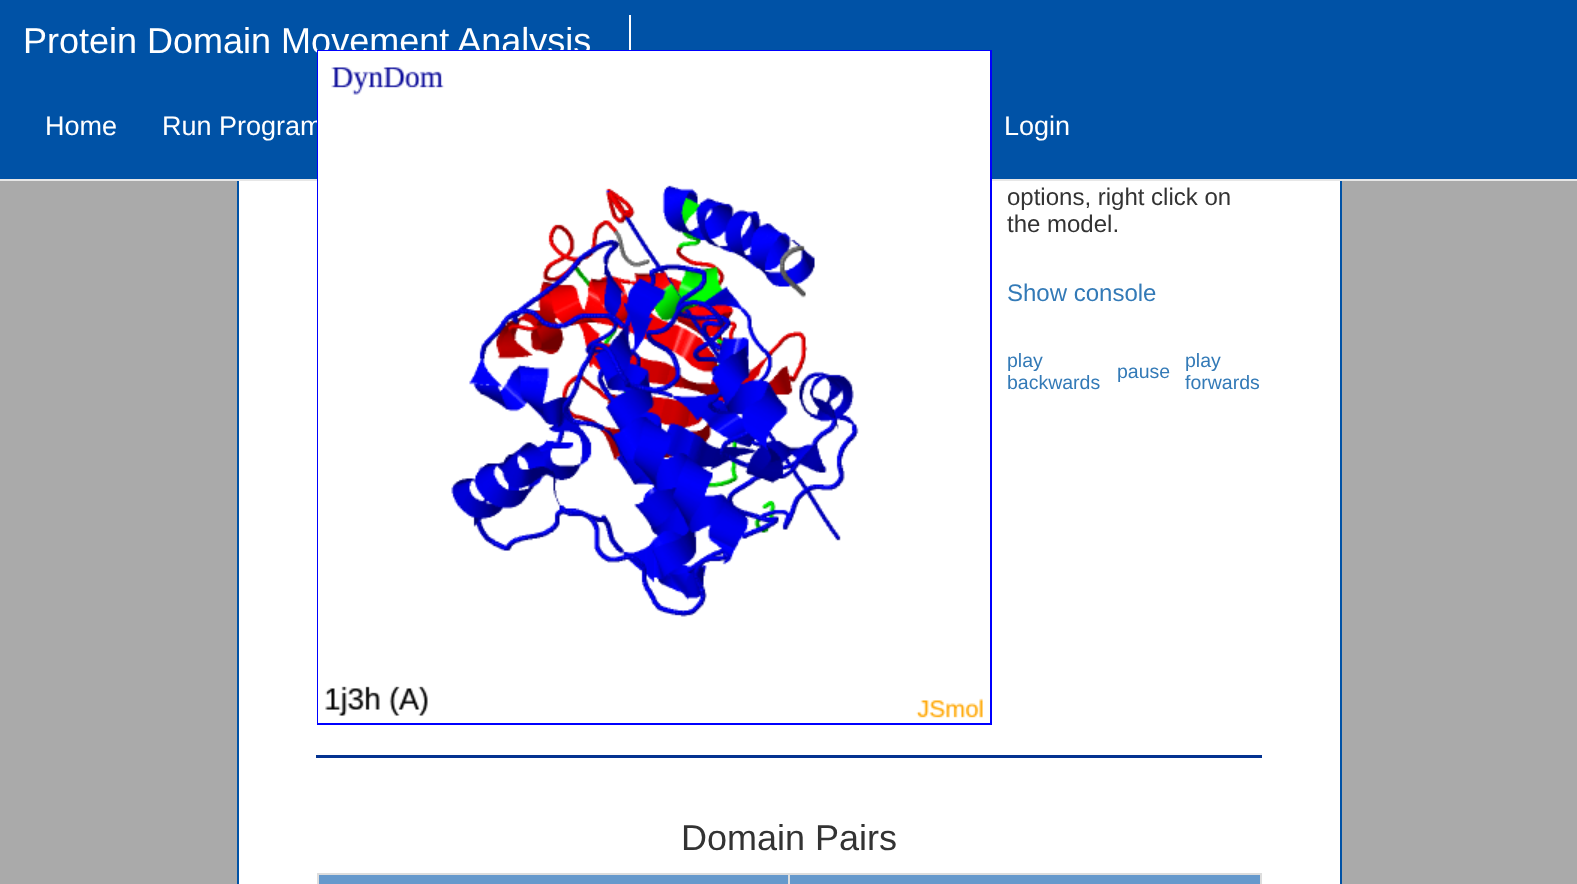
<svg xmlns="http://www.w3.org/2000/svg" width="1577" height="884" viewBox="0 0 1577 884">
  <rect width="100%" height="100%" fill="#aaa"/>
  <path d="M0 0h1577v179H0z" fill="#0052a6"/>
  <path d="M0 179h1577v2H0z" fill="#e7e7e7"/>
  <path d="M629 15h2v35H629z" fill="#fff"/>
  <path d="M239 181h1101v703H239z" fill="#fff"/>
  <path d="M1340 181h2v703H1340z" fill="#0052a6"/>
  <path d="M237 181h2v703H237z" fill="#0052a6"/>
  <path d="M316 755h946v3H316z" fill="#033290"/>
  <path d="M317 873h945v2H317z" fill="#ddd"/>
  <path d="M1260 873h2v11H1260z" fill="#ddd"/>
  <path d="M317 873h2v11H317z" fill="#ddd"/>
  <path d="M319 875h469v9H319z" fill="#69c"/>
  <path d="M790 875h470v9H790z" fill="#69c"/>
  <path d="M788 873h2v11H788z" fill="#ddd"/>
  <text x="23" y="53" font-family="Liberation Sans" font-size="36" fill="#fff">Protein Domain Movement Analysis</text>
  <g font-family="Liberation Sans" font-size="27" fill="#fff">
    <text x="45" y="135">Home</text>
    <text x="162" y="135">Run Program</text>
    <text x="1004" y="135">Login</text>
  </g>
  <path d="M318 51h673v673H318z" fill="none" stroke="#00f" stroke-width="2"/>
  <image x="318" y="51" width="672" height="672" href="img/1.png"/>
  <g font-family="Liberation Sans" font-size="24" fill="#333">
    <text x="1007" y="205">options, right click on</text>
    <text x="1007" y="232">the model.</text>
  </g>
  <text x="1007" y="301" font-family="Liberation Sans" font-size="24" fill="#337ab7">Show console</text>
  <g font-family="Liberation Sans" font-size="19.5" fill="#337ab7">
    <text x="1007" y="367">play</text>
    <text x="1007" y="389">backwards</text>
    <text x="1117" y="378">pause</text>
    <text x="1185" y="367">play</text>
    <text x="1185" y="389">forwards</text>
  </g>
  <text x="681" y="850" font-family="Liberation Sans" font-size="36" fill="#333">Domain Pairs</text>
</svg>
